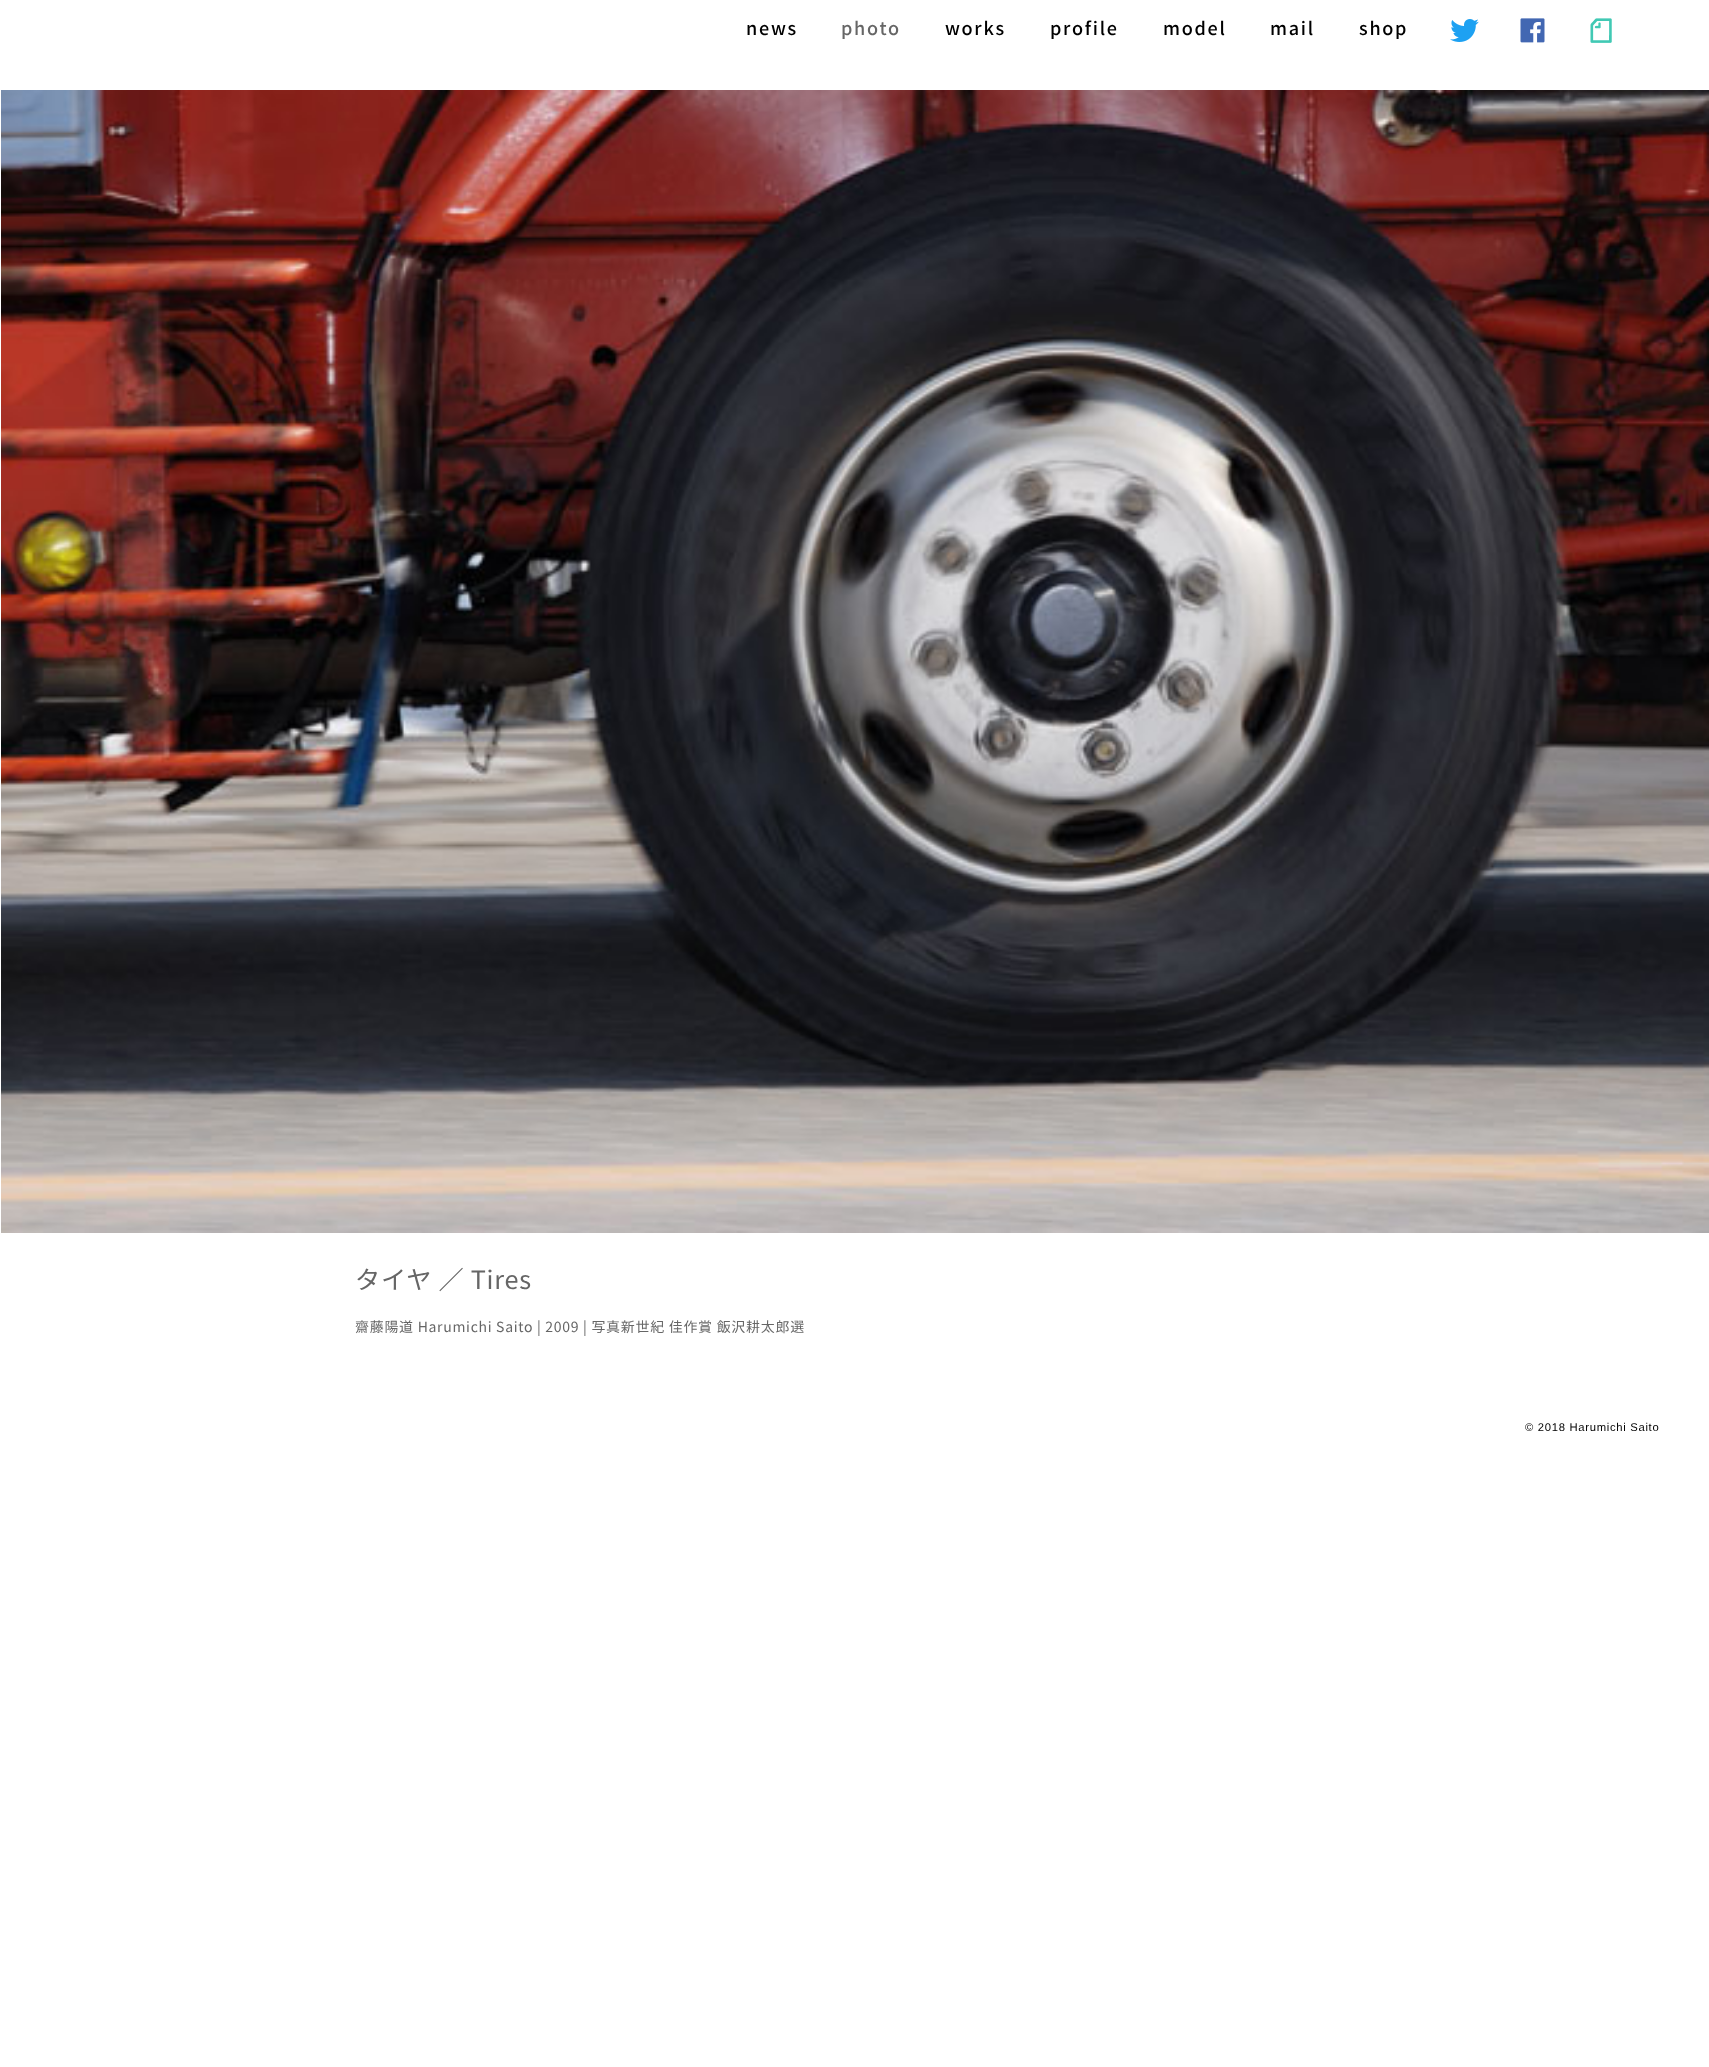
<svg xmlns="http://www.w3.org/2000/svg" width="1709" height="2067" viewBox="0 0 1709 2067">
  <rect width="100%" height="100%" fill="#fff"/>
  <image x="1450" y="19" width="29" height="23" href="img/1.png"/>
  <image x="1520" y="18" width="25" height="25" href="img/2.png"/>
  <image x="1590" y="18" width="22" height="25" href="img/3.png"/>
  <image x="1" y="90" width="1708" height="1143" href="img/4.png"/>
  <text x="746" y="35" font-family="Noto Sans JP" font-size="18" font-weight="500" letter-spacing="1.75" fill="#000">news</text>
  <text x="841" y="35" font-family="Noto Sans JP" font-size="18" font-weight="500" letter-spacing="1.75" fill="#666">photo</text>
  <g font-family="Noto Sans JP" font-size="18" font-weight="500" letter-spacing="1.75" fill="#000">
    <text x="945" y="35">works</text>
    <text x="1050" y="35">profile</text>
    <text x="1163" y="35">model</text>
    <text x="1270" y="35">mail</text>
    <text x="1359" y="35">shop</text>
  </g>
  <text x="355" y="1289" font-family="Noto Sans JP" font-size="25.25" letter-spacing="0.7" fill="#666">タイヤ ／ Tires</text>
  <text x="355" y="1332" font-family="Noto Sans JP" font-size="14" letter-spacing="0.7" fill="#666">齋藤陽道 Harumichi Saito | 2009 | 写真新世紀 佳作賞 飯沢耕太郎選</text>
  <text x="1525" y="1431" font-family="Liberation Sans" font-size="11.25" letter-spacing="0.7" fill="#000">© 2018 Harumichi Saito</text>
</svg>
